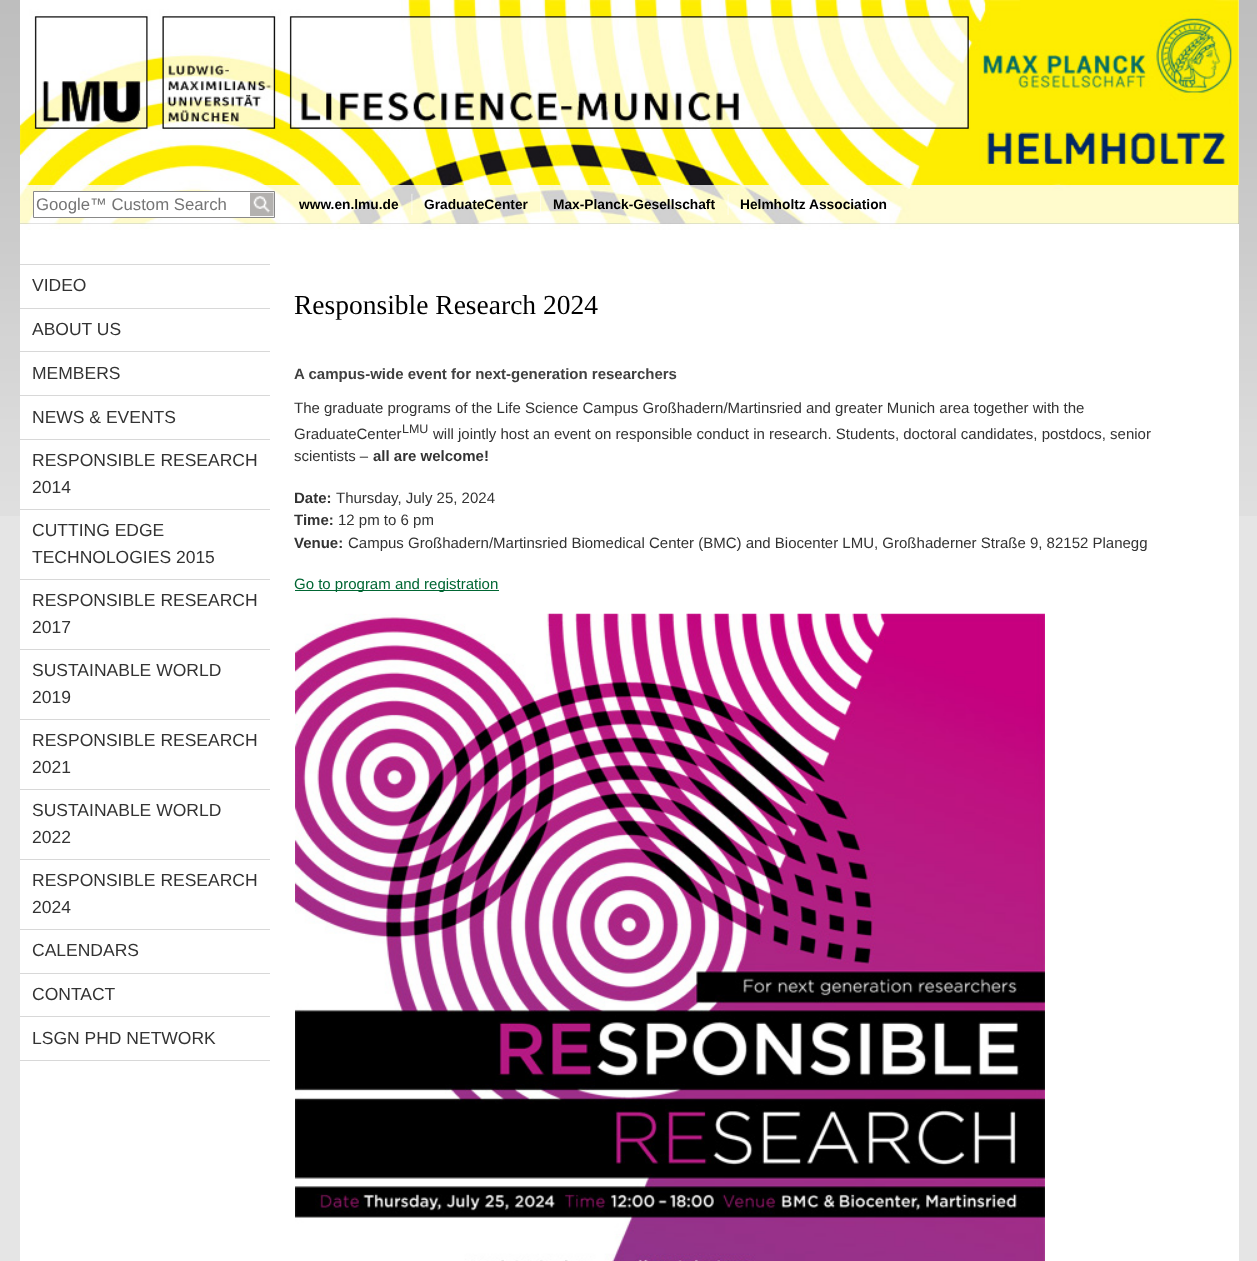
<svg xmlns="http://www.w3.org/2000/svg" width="1257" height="1261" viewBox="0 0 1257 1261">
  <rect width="100%" height="100%" fill="#e5e5e5"/>
  <image x="0" y="0" width="1257" height="516" href="img/1.png"/>
  <path d="M20 0h1219v1261H20z" fill="#fff"/>
  <image x="20" y="0" width="1219" height="185" href="img/2.png"/>
  <path d="M20 185h1219v39H20z" fill="#666"/>
  <image x="20" y="185" width="1219" height="39" href="img/3.png"/>
  <path d="M33.5 191.5h241v26H33.5z" fill="#fff" stroke="#888"/>
  <image x="250" y="192" width="24" height="25" href="img/4.png"/>
  <image x="411" y="193" width="2" height="22" href="img/5.png"/>
  <image x="540" y="193" width="2" height="20" href="img/6.png"/>
  <image x="727" y="193" width="2" height="22" href="img/7.png"/>
  <image x="20" y="223" width="1219" height="7" href="img/8.png"/>
  <path d="M20 264h250v1H20z" fill="#d8d8d8"/>
  <path d="M20 308h250v1H20z" fill="#d8d8d8"/>
  <path d="M20 351h250v1H20z" fill="#d8d8d8"/>
  <path d="M20 395h250v1H20z" fill="#d8d8d8"/>
  <path d="M20 439h250v1H20z" fill="#d8d8d8"/>
  <path d="M20 509h250v1H20z" fill="#d8d8d8"/>
  <path d="M20 579h250v1H20z" fill="#d8d8d8"/>
  <path d="M20 649h250v1H20z" fill="#d8d8d8"/>
  <path d="M20 719h250v1H20z" fill="#d8d8d8"/>
  <path d="M20 789h250v1H20z" fill="#d8d8d8"/>
  <path d="M20 859h250v1H20z" fill="#d8d8d8"/>
  <path d="M20 929h250v1H20z" fill="#d8d8d8"/>
  <path d="M20 973h250v1H20z" fill="#d8d8d8"/>
  <path d="M20 1016h250v1H20z" fill="#d8d8d8"/>
  <path d="M20 1060h250v1H20z" fill="#d8d8d8"/>
  <path d="M295 590h204v1H295z" fill="#063"/>
  <image x="295" y="613" width="750" height="648" href="img/9.png"/>
  <text x="36" y="210" font-family="Liberation Sans" font-size="16.75" fill="#757575">Google™ Custom Search</text>
  <g font-family="Liberation Sans" font-size="13.75" font-weight="bold" fill="#000">
    <text x="299" y="209">www.en.lmu.de</text>
    <text x="424" y="209">GraduateCenter</text>
    <text x="553" y="209">Max-Planck-Gesellschaft</text>
    <text x="740" y="209">Helmholtz Association</text>
  </g>
  <g font-family="Liberation Sans" font-size="17.5" fill="#333">
    <text x="32" y="291">VIDEO</text>
    <text x="32" y="335">ABOUT US</text>
    <text x="32" y="379">MEMBERS</text>
    <text x="32" y="423">NEWS &amp; EVENTS</text>
    <text x="32" y="466">RESPONSIBLE RESEARCH</text>
    <text x="32" y="493">2014</text>
    <text x="32" y="536">CUTTING EDGE</text>
    <text x="32" y="563">TECHNOLOGIES 2015</text>
    <text x="32" y="606">RESPONSIBLE RESEARCH</text>
    <text x="32" y="633">2017</text>
    <text x="32" y="676">SUSTAINABLE WORLD</text>
    <text x="32" y="703">2019</text>
    <text x="32" y="746">RESPONSIBLE RESEARCH</text>
    <text x="32" y="773">2021</text>
    <text x="32" y="816">SUSTAINABLE WORLD</text>
    <text x="32" y="843">2022</text>
    <text x="32" y="886">RESPONSIBLE RESEARCH</text>
    <text x="32" y="913">2024</text>
    <text x="32" y="956">CALENDARS</text>
    <text x="32" y="1000">CONTACT</text>
    <text x="32" y="1044">LSGN PHD NETWORK</text>
  </g>
  <text x="294" y="314" font-family="Liberation Serif" font-size="27.5" fill="#000">Responsible Research 2024</text>
  <text x="294" y="379" font-family="Liberation Sans" font-size="15" font-weight="bold" fill="#404040">A campus-wide event for next-generation researchers</text>
  <g font-family="Liberation Sans" font-size="15" fill="#333">
    <text x="294" y="413">The graduate programs of the Life Science Campus Großhadern/Martinsried and greater Munich area together with the</text>
    <text x="294" y="439">GraduateCenter</text>
  </g>
  <text x="402" y="433" font-family="Liberation Sans" font-size="12.5" fill="#333">LMU</text>
  <g font-family="Liberation Sans" font-size="15" fill="#333">
    <text x="433" y="439">will jointly host an event on responsible conduct in research. Students, doctoral candidates, postdocs, senior</text>
    <text x="294" y="461">scientists –</text>
  </g>
  <g font-family="Liberation Sans" font-size="15" font-weight="bold" fill="#333">
    <text x="373" y="461">all are welcome!</text>
    <text x="294" y="503">Date:</text>
  </g>
  <text x="336" y="503" font-family="Liberation Sans" font-size="15" fill="#333">Thursday, July 25, 2024</text>
  <text x="294" y="525" font-family="Liberation Sans" font-size="15" font-weight="bold" fill="#333">Time:</text>
  <text x="338" y="525" font-family="Liberation Sans" font-size="15" fill="#333">12 pm to 6 pm</text>
  <text x="294" y="548" font-family="Liberation Sans" font-size="15" font-weight="bold" fill="#333">Venue:</text>
  <text x="348" y="548" font-family="Liberation Sans" font-size="15" fill="#333">Campus Großhadern/Martinsried Biomedical Center (BMC) and Biocenter LMU, Großhaderner Straße 9, 82152 Planegg</text>
  <text x="294" y="589" font-family="Liberation Sans" font-size="15" fill="#063">Go to program and registration</text>
</svg>
